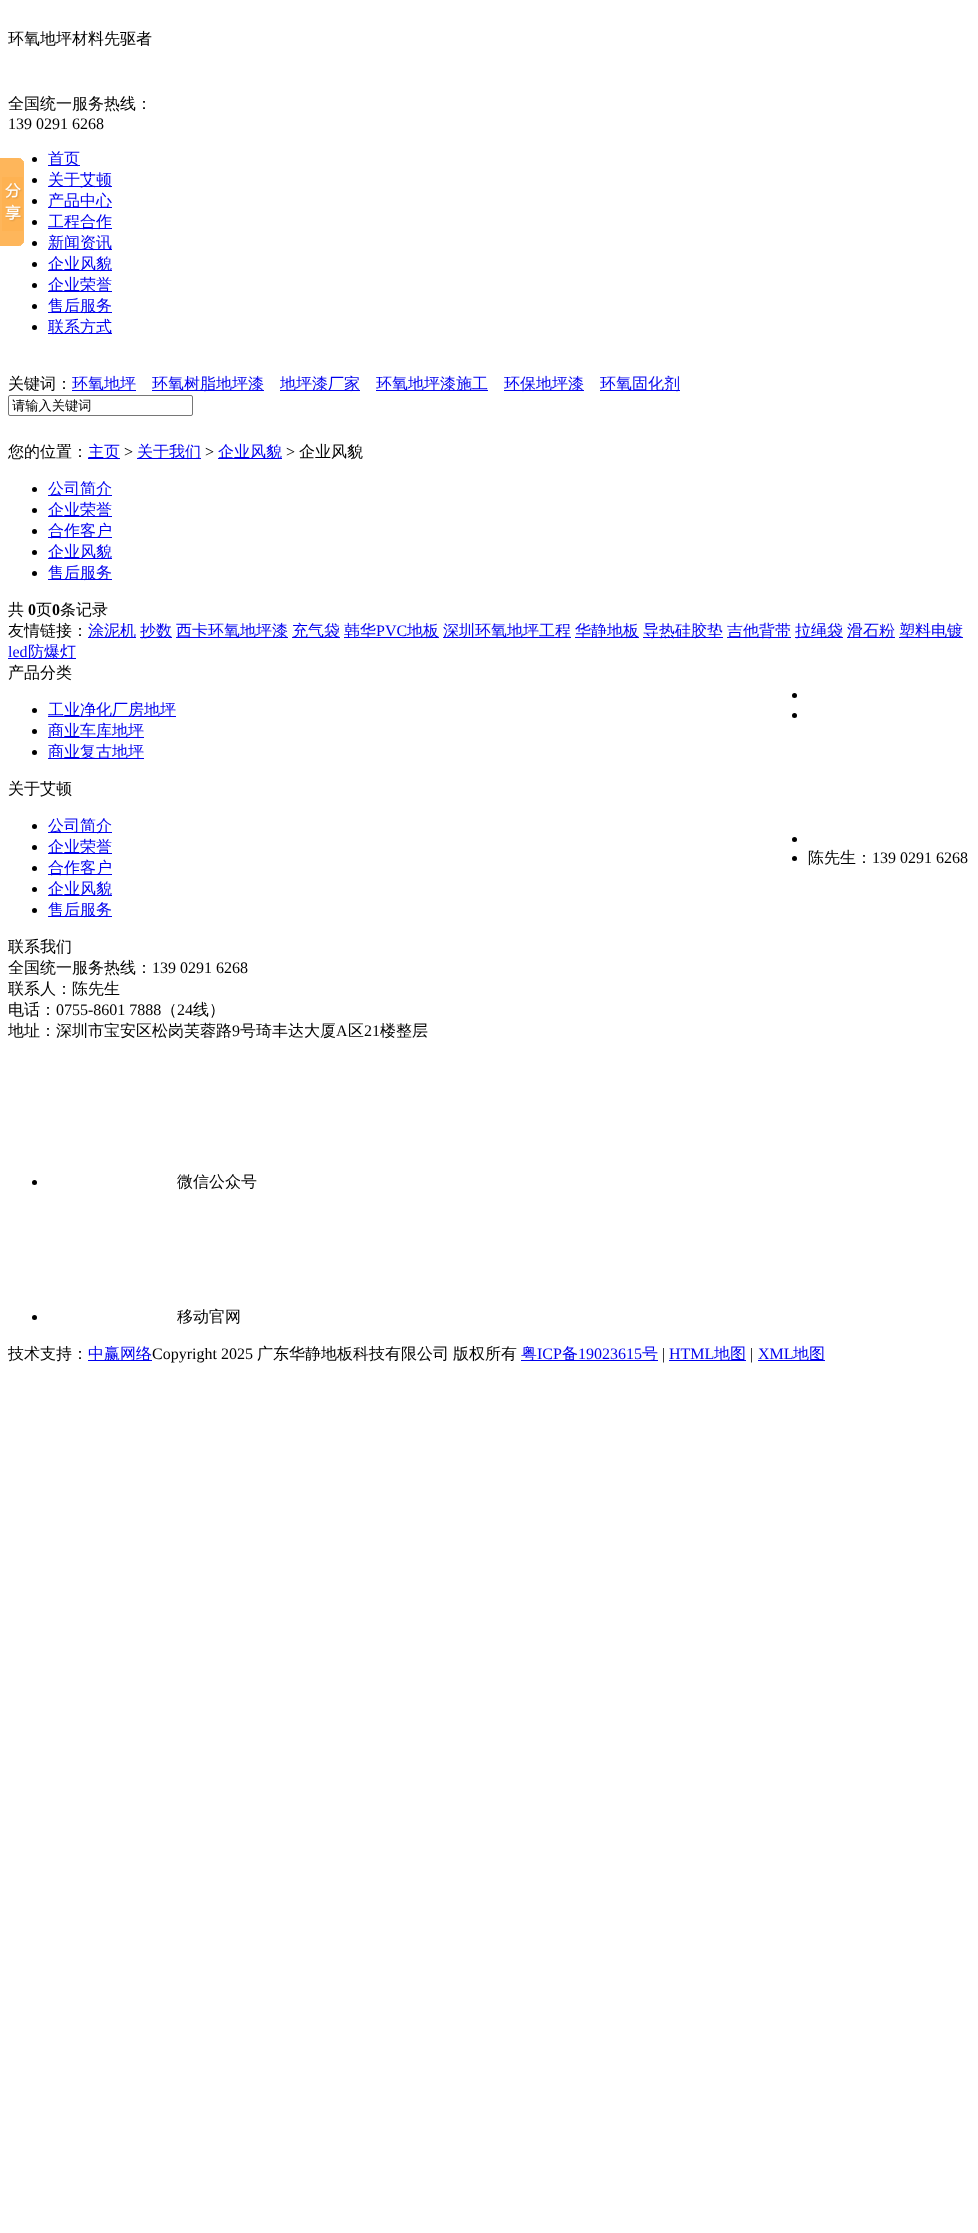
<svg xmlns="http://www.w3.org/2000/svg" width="978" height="2233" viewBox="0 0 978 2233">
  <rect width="100%" height="100%" fill="#fff"/>
  <image x="0" y="158" width="24" height="88" href="img/1.png"/>
  <circle cx="34.5" cy="159.5" r="2.5" fill="#000"/>
  <path d="M48 165h32v1H48z" fill="#00e"/>
  <circle cx="34.5" cy="180.5" r="2.5" fill="#000"/>
  <path d="M48 186h64v1H48z" fill="#00e"/>
  <circle cx="34.5" cy="201.5" r="2.5" fill="#000"/>
  <path d="M48 207h64v1H48z" fill="#00e"/>
  <circle cx="34.5" cy="222.5" r="2.5" fill="#000"/>
  <path d="M48 228h64v1H48z" fill="#00e"/>
  <circle cx="34.5" cy="243.5" r="2.5" fill="#000"/>
  <path d="M48 249h64v1H48z" fill="#00e"/>
  <circle cx="34.5" cy="264.5" r="2.5" fill="#000"/>
  <path d="M48 270h64v1H48z" fill="#00e"/>
  <circle cx="34.5" cy="285.5" r="2.5" fill="#000"/>
  <path d="M48 291h64v1H48z" fill="#00e"/>
  <circle cx="34.5" cy="306.5" r="2.5" fill="#000"/>
  <path d="M48 312h64v1H48z" fill="#00e"/>
  <circle cx="34.5" cy="327.5" r="2.5" fill="#000"/>
  <path d="M48 333h64v1H48z" fill="#00e"/>
  <path d="M72 390h64v1H72z" fill="#00e"/>
  <path d="M152 390h112v1H152z" fill="#00e"/>
  <path d="M280 390h80v1H280z" fill="#00e"/>
  <path d="M376 390h112v1H376z" fill="#00e"/>
  <path d="M504 390h80v1H504z" fill="#00e"/>
  <path d="M600 390h80v1H600z" fill="#00e"/>
  <rect x="8.5" y="395.5" width="184" height="20" rx="1.5" fill="none" stroke="#767676"/>
  <path d="M88 458h32v1H88z" fill="#00e"/>
  <path d="M137 458h64v1H137z" fill="#00e"/>
  <path d="M218 458h64v1H218z" fill="#00e"/>
  <circle cx="34.5" cy="489.5" r="2.5" fill="#000"/>
  <path d="M48 495h64v1H48z" fill="#00e"/>
  <circle cx="34.5" cy="510.5" r="2.5" fill="#000"/>
  <path d="M48 516h64v1H48z" fill="#00e"/>
  <circle cx="34.5" cy="531.5" r="2.5" fill="#000"/>
  <path d="M48 537h64v1H48z" fill="#00e"/>
  <circle cx="34.5" cy="552.5" r="2.5" fill="#000"/>
  <path d="M48 558h64v1H48z" fill="#00e"/>
  <circle cx="34.5" cy="573.5" r="2.5" fill="#000"/>
  <path d="M48 579h64v1H48z" fill="#00e"/>
  <path d="M88 637h48v1H88z" fill="#00e"/>
  <path d="M140 637h32v1H140z" fill="#00e"/>
  <path d="M176 637h112v1H176z" fill="#00e"/>
  <path d="M292 637h48v1H292z" fill="#00e"/>
  <path d="M344 637h95v1H344z" fill="#00e"/>
  <path d="M443 637h128v1H443z" fill="#00e"/>
  <path d="M575 637h64v1H575z" fill="#00e"/>
  <path d="M643 637h80v1H643z" fill="#00e"/>
  <path d="M727 637h64v1H727z" fill="#00e"/>
  <path d="M795 637h48v1H795z" fill="#00e"/>
  <path d="M847 637h48v1H847z" fill="#00e"/>
  <path d="M899 637h64v1H899z" fill="#00e"/>
  <path d="M8 658h68v1H8z" fill="#00e"/>
  <circle cx="34.5" cy="710.5" r="2.5" fill="#000"/>
  <path d="M48 716h128v1H48z" fill="#00e"/>
  <circle cx="34.5" cy="731.5" r="2.5" fill="#000"/>
  <path d="M48 737h96v1H48z" fill="#00e"/>
  <circle cx="34.5" cy="752.5" r="2.5" fill="#000"/>
  <path d="M48 758h96v1H48z" fill="#00e"/>
  <circle cx="34.5" cy="826.5" r="2.5" fill="#000"/>
  <path d="M48 832h64v1H48z" fill="#00e"/>
  <circle cx="34.5" cy="847.5" r="2.5" fill="#000"/>
  <path d="M48 853h64v1H48z" fill="#00e"/>
  <circle cx="34.5" cy="868.5" r="2.5" fill="#000"/>
  <path d="M48 874h64v1H48z" fill="#00e"/>
  <circle cx="34.5" cy="889.5" r="2.5" fill="#000"/>
  <path d="M48 895h64v1H48z" fill="#00e"/>
  <circle cx="34.5" cy="910.5" r="2.5" fill="#000"/>
  <path d="M48 916h64v1H48z" fill="#00e"/>
  <circle cx="34.5" cy="1182.5" r="2.5" fill="#000"/>
  <circle cx="34.5" cy="1317.5" r="2.5" fill="#000"/>
  <path d="M88 1360h64v1H88z" fill="#00e"/>
  <path d="M521 1360h137v1H521z" fill="#00e"/>
  <path d="M669 1360h77v1H669z" fill="#00e"/>
  <path d="M758 1360h67v1H758z" fill="#00e"/>
  <circle cx="794.5" cy="695.5" r="2.5" fill="#000"/>
  <circle cx="794.5" cy="715.5" r="2.5" fill="#000"/>
  <circle cx="794.5" cy="839.5" r="2.5" fill="#000"/>
  <circle cx="794.5" cy="858.5" r="2.5" fill="#000"/>
  <g font-family="WenQuanYi Zen Hei" font-size="16" font-weight="500" fill="#000">
    <text x="8" y="44">环氧地坪材料先驱者</text>
    <text x="8" y="109">全国统一服务热线：</text>
  </g>
  <text x="8" y="129" font-family="Liberation Serif" font-size="16" fill="#000">139 0291 6268</text>
  <g font-family="WenQuanYi Zen Hei" font-size="16" font-weight="500" fill="#00e">
    <text x="48" y="164">首页</text>
    <text x="48" y="185">关于艾顿</text>
    <text x="48" y="206">产品中心</text>
    <text x="48" y="227">工程合作</text>
    <text x="48" y="248">新闻资讯</text>
    <text x="48" y="269">企业风貌</text>
    <text x="48" y="290">企业荣誉</text>
    <text x="48" y="311">售后服务</text>
    <text x="48" y="332">联系方式</text>
  </g>
  <text x="8" y="389" font-family="WenQuanYi Zen Hei" font-size="16" font-weight="500" fill="#000">关键词：</text>
  <g font-family="WenQuanYi Zen Hei" font-size="16" font-weight="500" fill="#00e">
    <text x="72" y="389">环氧地坪</text>
    <text x="152" y="389">环氧树脂地坪漆</text>
    <text x="280" y="389">地坪漆厂家</text>
    <text x="376" y="389">环氧地坪漆施工</text>
    <text x="504" y="389">环保地坪漆</text>
    <text x="600" y="389">环氧固化剂</text>
  </g>
  <text x="12" y="410" font-family="WenQuanYi Zen Hei" font-size="13.25" font-weight="500" fill="#000">请输入关键词</text>
  <text x="8" y="457" font-family="WenQuanYi Zen Hei" font-size="16" font-weight="500" fill="#000">您的位置：</text>
  <text x="88" y="457" font-family="WenQuanYi Zen Hei" font-size="16" font-weight="500" fill="#00e">主页</text>
  <text x="124" y="457" font-family="Liberation Serif" font-size="16" fill="#000">&gt;</text>
  <text x="137" y="457" font-family="WenQuanYi Zen Hei" font-size="16" font-weight="500" fill="#00e">关于我们</text>
  <text x="205" y="457" font-family="Liberation Serif" font-size="16" fill="#000">&gt;</text>
  <text x="218" y="457" font-family="WenQuanYi Zen Hei" font-size="16" font-weight="500" fill="#00e">企业风貌</text>
  <text x="286" y="457" font-family="Liberation Serif" font-size="16" fill="#000">&gt;</text>
  <text x="299" y="457" font-family="WenQuanYi Zen Hei" font-size="16" font-weight="500" fill="#000">企业风貌</text>
  <g font-family="WenQuanYi Zen Hei" font-size="16" font-weight="500" fill="#00e">
    <text x="48" y="494">公司简介</text>
    <text x="48" y="515">企业荣誉</text>
    <text x="48" y="536">合作客户</text>
    <text x="48" y="557">企业风貌</text>
    <text x="48" y="578">售后服务</text>
  </g>
  <text x="8" y="615" font-family="WenQuanYi Zen Hei" font-size="16" font-weight="500" fill="#000">共</text>
  <text x="28" y="615" font-family="Liberation Serif" font-size="16" font-weight="bold" fill="#000">0</text>
  <text x="36" y="615" font-family="WenQuanYi Zen Hei" font-size="16" font-weight="500" fill="#000">页</text>
  <text x="52" y="615" font-family="Liberation Serif" font-size="16" font-weight="bold" fill="#000">0</text>
  <g font-family="WenQuanYi Zen Hei" font-size="16" font-weight="500" fill="#000">
    <text x="60" y="615">条记录</text>
    <text x="8" y="636">友情链接：</text>
  </g>
  <g font-family="WenQuanYi Zen Hei" font-size="16" font-weight="500" fill="#00e">
    <text x="88" y="636">涂泥机</text>
    <text x="140" y="636">抄数</text>
    <text x="176" y="636">西卡环氧地坪漆</text>
    <text x="292" y="636">充气袋</text>
    <text x="344" y="636">韩华</text>
  </g>
  <text x="376" y="636" font-family="Liberation Serif" font-size="16" fill="#00e">PVC</text>
  <g font-family="WenQuanYi Zen Hei" font-size="16" font-weight="500" fill="#00e">
    <text x="407" y="636">地板</text>
    <text x="443" y="636">深圳环氧地坪工程</text>
    <text x="575" y="636">华静地板</text>
    <text x="643" y="636">导热硅胶垫</text>
    <text x="727" y="636">吉他背带</text>
    <text x="795" y="636">拉绳袋</text>
    <text x="847" y="636">滑石粉</text>
    <text x="899" y="636">塑料电镀</text>
  </g>
  <text x="8" y="657" font-family="Liberation Serif" font-size="16" fill="#00e">led</text>
  <text x="28" y="657" font-family="WenQuanYi Zen Hei" font-size="16" font-weight="500" fill="#00e">防爆灯</text>
  <text x="8" y="678" font-family="WenQuanYi Zen Hei" font-size="16" font-weight="500" fill="#000">产品分类</text>
  <g font-family="WenQuanYi Zen Hei" font-size="16" font-weight="500" fill="#00e">
    <text x="48" y="715">工业净化厂房地坪</text>
    <text x="48" y="736">商业车库地坪</text>
    <text x="48" y="757">商业复古地坪</text>
  </g>
  <text x="8" y="794" font-family="WenQuanYi Zen Hei" font-size="16" font-weight="500" fill="#000">关于艾顿</text>
  <g font-family="WenQuanYi Zen Hei" font-size="16" font-weight="500" fill="#00e">
    <text x="48" y="831">公司简介</text>
    <text x="48" y="852">企业荣誉</text>
    <text x="48" y="873">合作客户</text>
    <text x="48" y="894">企业风貌</text>
    <text x="48" y="915">售后服务</text>
  </g>
  <g font-family="WenQuanYi Zen Hei" font-size="16" font-weight="500" fill="#000">
    <text x="8" y="952">联系我们</text>
    <text x="8" y="973">全国统一服务热线：</text>
  </g>
  <text x="152" y="973" font-family="Liberation Serif" font-size="16" fill="#000">139 0291 6268</text>
  <g font-family="WenQuanYi Zen Hei" font-size="16" font-weight="500" fill="#000">
    <text x="8" y="994">联系人：陈先生</text>
    <text x="8" y="1015">电话：</text>
  </g>
  <text x="56" y="1015" font-family="Liberation Serif" font-size="16" fill="#000">0755-8601 7888</text>
  <text x="161" y="1015" font-family="WenQuanYi Zen Hei" font-size="16" font-weight="500" fill="#000">（</text>
  <text x="177" y="1015" font-family="Liberation Serif" font-size="16" fill="#000">24</text>
  <g font-family="WenQuanYi Zen Hei" font-size="16" font-weight="500" fill="#000">
    <text x="193" y="1015">线）</text>
    <text x="8" y="1036">地址：深圳市宝安区松岗芙蓉路</text>
  </g>
  <text x="232" y="1036" font-family="Liberation Serif" font-size="16" fill="#000">9</text>
  <text x="240" y="1036" font-family="WenQuanYi Zen Hei" font-size="16" font-weight="500" fill="#000">号琦丰达大厦</text>
  <text x="336" y="1036" font-family="Liberation Serif" font-size="16" fill="#000">A</text>
  <text x="348" y="1036" font-family="WenQuanYi Zen Hei" font-size="16" font-weight="500" fill="#000">区</text>
  <text x="364" y="1036" font-family="Liberation Serif" font-size="16" fill="#000">21</text>
  <g font-family="WenQuanYi Zen Hei" font-size="16" font-weight="500" fill="#000">
    <text x="380" y="1036">楼整层</text>
    <text x="177" y="1187">微信公众号</text>
    <text x="177" y="1322">移动官网</text>
    <text x="8" y="1359">技术支持：</text>
  </g>
  <text x="88" y="1359" font-family="WenQuanYi Zen Hei" font-size="16" font-weight="500" fill="#00e">中赢网络</text>
  <text x="152" y="1359" font-family="Liberation Serif" font-size="16" fill="#000">Copyright 2025</text>
  <g font-family="WenQuanYi Zen Hei" font-size="16" font-weight="500" fill="#000">
    <text x="257" y="1359">广东华静地板科技有限公司</text>
    <text x="453" y="1359">版权所有</text>
  </g>
  <text x="521" y="1359" font-family="WenQuanYi Zen Hei" font-size="16" font-weight="500" fill="#00e">粤</text>
  <text x="537" y="1359" font-family="Liberation Serif" font-size="16" fill="#00e">ICP</text>
  <text x="562" y="1359" font-family="WenQuanYi Zen Hei" font-size="16" font-weight="500" fill="#00e">备</text>
  <text x="578" y="1359" font-family="Liberation Serif" font-size="16" fill="#00e">19023615</text>
  <text x="642" y="1359" font-family="WenQuanYi Zen Hei" font-size="16" font-weight="500" fill="#00e">号</text>
  <text x="662" y="1359" font-family="Liberation Serif" font-size="16" fill="#000">|</text>
  <text x="669" y="1359" font-family="Liberation Serif" font-size="16" fill="#00e">HTML</text>
  <text x="714" y="1359" font-family="WenQuanYi Zen Hei" font-size="16" font-weight="500" fill="#00e">地图</text>
  <text x="750" y="1359" font-family="Liberation Serif" font-size="16" fill="#000">|</text>
  <text x="758" y="1359" font-family="Liberation Serif" font-size="16" fill="#00e">XML</text>
  <text x="793" y="1359" font-family="WenQuanYi Zen Hei" font-size="16" font-weight="500" fill="#00e">地图</text>
  <text x="808" y="863" font-family="WenQuanYi Zen Hei" font-size="16" font-weight="500" fill="#000">陈先生：</text>
  <text x="872" y="863" font-family="Liberation Serif" font-size="16" fill="#000">139 0291 6268</text>
</svg>
